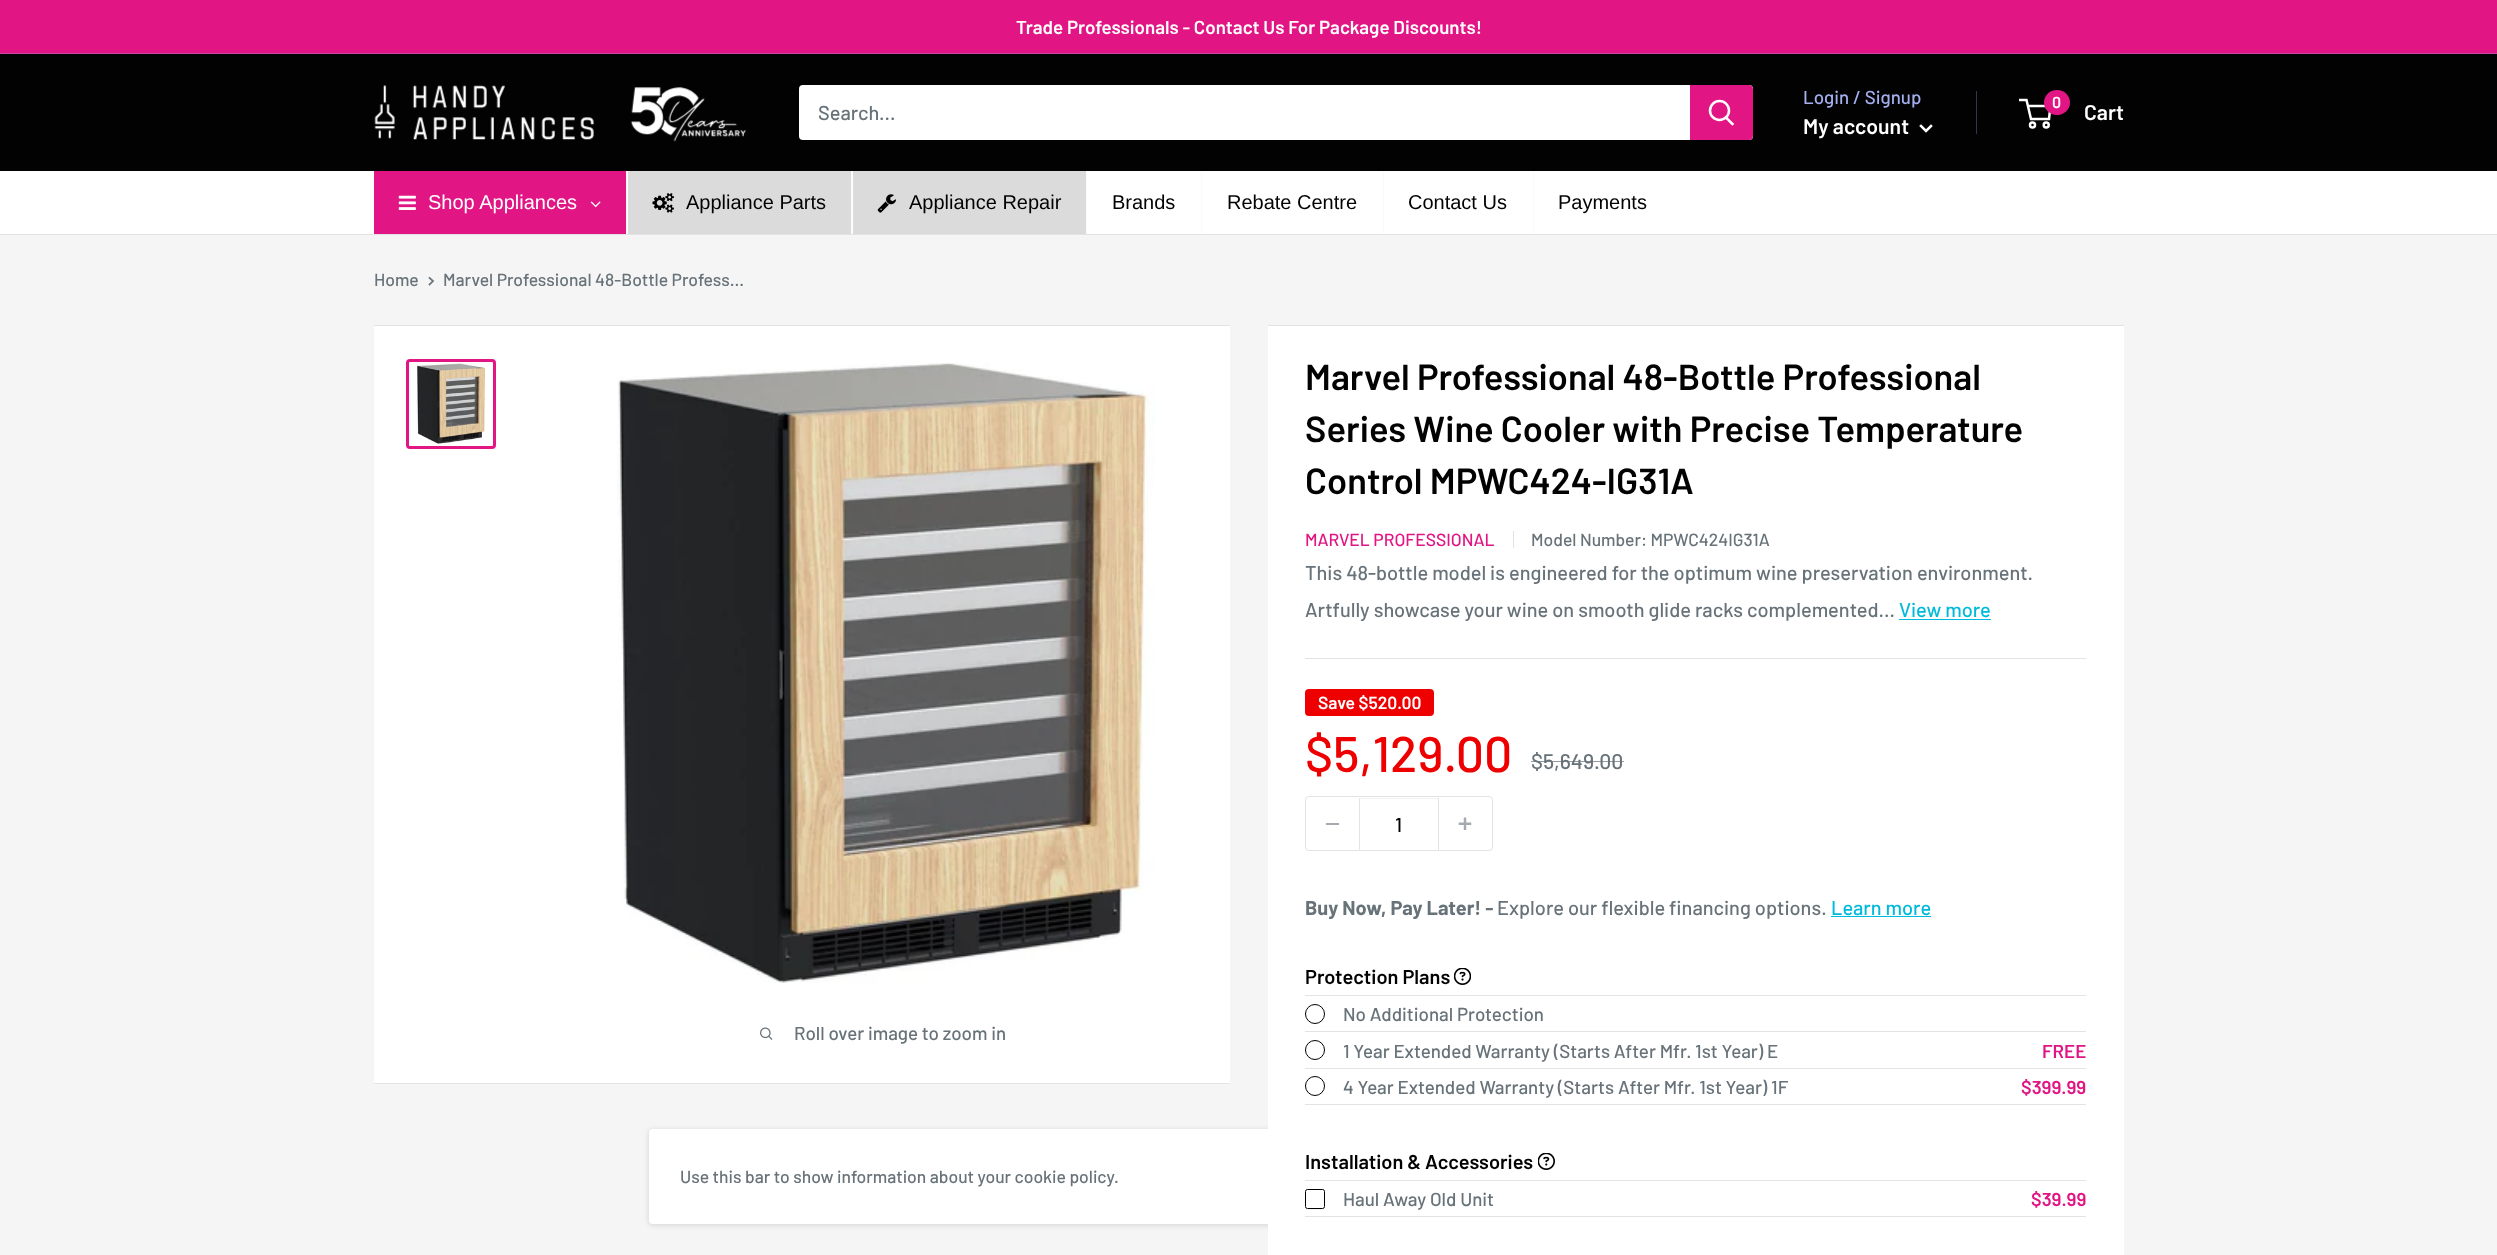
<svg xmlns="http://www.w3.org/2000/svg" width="2497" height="1255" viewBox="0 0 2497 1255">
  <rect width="100%" height="100%" fill="#f5f5f5"/>
  <path d="M0 0h2497v53H0z" fill="#e11584"/>
  <path d="M0 53h2497v1H0z" fill="#ce43a4"/>
  <path d="M0 54h2497v117H0z" fill="#020202"/>
  <image x="374" y="85" width="372" height="57" href="img/1.png"/>
  <rect x="799" y="85" width="954" height="55" rx="4" fill="#fff"/>
  <path d="M1690 85H1749C1751 85 1753 87 1753 89V136C1753 138 1751 140 1749 140H1690Z" fill="#e11584"/>
  <path d="M1732.5 124L1726 117.5" fill="none" stroke="#fff" stroke-width="2.5" stroke-linecap="square"/>
  <circle cx="1719.5" cy="110.5" r="9.5" fill="none" stroke="#fff" stroke-width="2.5"/>
  <path d="M1976 91h1v43H1976z" fill="#323649"/>
  <path d="M1931 126L1926 131L1921 126" fill="none" stroke="#fff" stroke-width="2.5" stroke-linecap="square"/>
  <circle cx="2032.5" cy="125" r="2.5" fill="none" stroke="#fff" stroke-width="2.5"/>
  <circle cx="2046.2" cy="125" r="2.5" fill="none" stroke="#fff" stroke-width="2.5"/>
  <path d="M2028 106H2050.5L2049 119H2031L2026.5 100H2019" fill="none" stroke="#fff" stroke-width="2.5"/>
  <rect x="2044" y="90" width="26" height="25" rx="12.5" fill="#e11584"/>
  <path d="M0 171h2497v63H0z" fill="#fff"/>
  <path d="M0 234h2497v1H0z" fill="#e1e3e4"/>
  <path d="M374 171h252v63H374z" fill="#e11584"/>
  <image x="398" y="195" width="18" height="15" href="img/2.png"/>
  <image x="590" y="201" width="11" height="7" href="img/3.png"/>
  <path d="M626 171h1v63H626z" fill="#fafafa"/>
  <path d="M628 171h223v63H628z" fill="#dbdbdb"/>
  <image x="652" y="193" width="22" height="20" href="img/4.png"/>
  <path d="M851 171h1v63H851z" fill="#fafafa"/>
  <path d="M853 171h233v63H853z" fill="#dbdbdb"/>
  <image x="877" y="194" width="19" height="19" href="img/5.png"/>
  <path d="M1086 171h1v63H1086z" fill="#fafafa"/>
  <path d="M1201 171h1v63H1201z" fill="#fafafa"/>
  <path d="M1383 171h1v63H1383z" fill="#fafafa"/>
  <path d="M1533 171h1v63H1533z" fill="#fafafa"/>
  <path d="M429.5 278L433 281L429.5 284.5" fill="none" stroke="#677279" stroke-width="1.7" stroke-linecap="square"/>
  <path d="M374 326h856v757H374z" fill="#fff"/>
  <path d="M374 325h856v1H374z" fill="#e1e3e4"/>
  <path d="M374 1083h856v1H374z" fill="#e1e3e4"/>
  <rect x="407.5" y="360.5" width="87" height="87" rx="2.5" fill="none" stroke="#e11584" stroke-width="3"/>
  <image x="416" y="363" width="70" height="81" href="img/6.png"/>
  <image x="617" y="363" width="538" height="620" href="img/7.png"/>
  <image x="760" y="1027" width="13" height="13" href="img/8.png"/>
  <rect x="648" y="1129" width="1202" height="97" rx="5" fill="#0000001a" filter="blur(2.5px)"/>
  <rect x="649" y="1129" width="1200" height="95" rx="4" fill="#fff"/>
  <path d="M1268 326h856v929H1268z" fill="#fff"/>
  <path d="M1268 325h856v1H1268z" fill="#e1e3e4"/>
  <path d="M1513 531h1v17H1513z" fill="#e1e3e4"/>
  <path d="M1899 619h92v1H1899z" fill="#00badb"/>
  <path d="M1305 658h781v1H1305z" fill="#e1e3e4"/>
  <rect x="1305" y="689" width="129" height="27" rx="4" fill="#e00"/>
  <rect x="1305.5" y="796.5" width="187" height="54" rx="3.5" fill="none" stroke="#e1e3e4"/>
  <path d="M1326 823h13v2H1326z" fill="#a4aaaf"/>
  <path d="M1360 798h78v1H1360z" fill="#f3f4f4"/>
  <path d="M1438 798h1v52H1438z" fill="#e1e3e4"/>
  <path d="M1359 798h1v52H1359z" fill="#e1e3e4"/>
  <image x="1458" y="817" width="14" height="13" href="img/9.png"/>
  <path d="M1831 916h100v1H1831z" fill="#00badb"/>
  <image x="1454" y="968" width="17" height="17" href="img/10.png"/>
  <path d="M1305 995h781v1H1305z" fill="#e1e3e4"/>
  <circle cx="1315" cy="1014" r="9.5" fill="none" stroke="#000"/>
  <path d="M1305 1031h781v1H1305z" fill="#e1e3e4"/>
  <circle cx="1315" cy="1050" r="9.5" fill="none" stroke="#000"/>
  <path d="M1305 1068h781v1H1305z" fill="#e1e3e4"/>
  <path d="M1305 1104h781v1H1305z" fill="#e1e3e4"/>
  <circle cx="1315" cy="1086" r="9.5" fill="none" stroke="#000"/>
  <image x="1538" y="1153" width="17" height="17" href="img/11.png"/>
  <path d="M1305 1180h781v1H1305z" fill="#e1e3e4"/>
  <path d="M1305 1216h781v1H1305z" fill="#e1e3e4"/>
  <path d="M1305 1206C1305 1210 1306.5 1210 1310 1210H1320C1323.5 1210 1325 1210 1325 1206C1325 1207.5 1324 1209 1322.5 1209H1307.5C1306 1209 1305 1207.5 1305 1206Z" fill="#f3f4f4"/>
  <rect x="1305.5" y="1189.5" width="19" height="19" rx="2" fill="#fff" stroke="#000"/>
  <text x="1016" y="34" font-family="Barlow" font-size="18.75" font-weight="600" fill="#fff">Trade Professionals - Contact Us For Package Discounts!</text>
  <text x="818" y="120" font-family="Barlow" font-size="20" font-weight="500" fill="#677279">Search...</text>
  <text x="1803" y="104" font-family="Barlow" font-size="18.75" font-weight="500" fill="#a3afef">Login / Signup</text>
  <text x="1803" y="134" font-family="Barlow" font-size="21.25" font-weight="600" fill="#fff">My account</text>
  <text x="2052" y="108" font-family="Barlow" font-size="16" font-weight="600" fill="#fff">0</text>
  <text x="2084" y="120" font-family="Barlow" font-size="21.25" font-weight="600" fill="#fff">Cart</text>
  <text x="428" y="209" font-family="Liberation Sans" font-size="20" fill="#fff">Shop Appliances</text>
  <g font-family="Liberation Sans" font-size="20" fill="#020202">
    <text x="686" y="209">Appliance Parts</text>
    <text x="909" y="209">Appliance Repair</text>
    <text x="1112" y="209">Brands</text>
    <text x="1227" y="209">Rebate Centre</text>
    <text x="1408" y="209">Contact Us</text>
    <text x="1558" y="209">Payments</text>
  </g>
  <g font-family="Barlow" font-size="17.5" font-weight="500" fill="#677279">
    <text x="374" y="286">Home</text>
    <text x="443" y="286">Marvel Professional 48-Bottle Profess...</text>
  </g>
  <text x="794" y="1040" font-family="Barlow" font-size="18.75" font-weight="500" fill="#677279">Roll over image to zoom in</text>
  <g font-family="Barlow" font-size="36.25" font-weight="600" fill="#020202">
    <text x="1305" y="390">Marvel Professional 48-Bottle Professional</text>
    <text x="1305" y="442">Series Wine Cooler with Precise Temperature</text>
    <text x="1305" y="494">Control MPWC424-IG31A</text>
  </g>
  <text x="1305" y="546" font-family="Barlow" font-size="17.5" font-weight="500" fill="#e11584">MARVEL PROFESSIONAL</text>
  <text x="1531" y="546" font-family="Barlow" font-size="17.5" font-weight="500" fill="#677279">Model Number: MPWC424IG31A</text>
  <g font-family="Barlow" font-size="20" font-weight="500" fill="#677279">
    <text x="1305" y="580">This 48-bottle model is engineered for the optimum wine preservation environment.</text>
    <text x="1305" y="617">Artfully showcase your wine on smooth glide racks complemented...</text>
  </g>
  <text x="1899" y="617" font-family="Barlow" font-size="20" font-weight="500" fill="#00badb">View more</text>
  <text x="1318" y="709" font-family="Barlow" font-size="17.5" font-weight="600" fill="#fff">Save $520.00</text>
  <text x="1305" y="772" font-family="Barlow" font-size="50" font-weight="500" fill="#e00">$5,129.00</text>
  <text x="1531" y="769" font-family="Barlow" font-size="21.25" font-weight="500" fill="#677279">$5,649.00</text>
  <path d="M1531 761h93v1H1531z" fill="#677279b3"/>
  <text x="1395" y="832" font-family="Barlow" font-size="20" font-weight="500" fill="#020202">1</text>
  <text x="1305" y="915" font-family="Barlow" font-size="20" font-weight="bold" fill="#677279">Buy Now, Pay Later! -</text>
  <text x="1497" y="915" font-family="Barlow" font-size="20" font-weight="500" fill="#677279">Explore our flexible financing options.</text>
  <text x="1831" y="915" font-family="Barlow" font-size="20" font-weight="500" fill="#00badb">Learn more</text>
  <text x="1305" y="984" font-family="Barlow" font-size="20" font-weight="600" fill="#020202">Protection Plans</text>
  <g font-family="Barlow" font-size="18.75" font-weight="500" fill="#677279">
    <text x="1343" y="1021">No Additional Protection</text>
    <text x="1343" y="1058">1 Year Extended Warranty (Starts After Mfr. 1st Year) E</text>
  </g>
  <text x="2042" y="1058" font-family="Barlow" font-size="18.75" font-weight="600" fill="#e11584">FREE</text>
  <text x="1343" y="1094" font-family="Barlow" font-size="18.75" font-weight="500" fill="#677279">4 Year Extended Warranty (Starts After Mfr. 1st Year) 1F</text>
  <text x="2021" y="1094" font-family="Barlow" font-size="18.75" font-weight="600" fill="#e11584">$399.99</text>
  <text x="1305" y="1169" font-family="Barlow" font-size="20" font-weight="600" fill="#020202">Installation &amp; Accessories</text>
  <text x="1343" y="1206" font-family="Barlow" font-size="18.75" font-weight="500" fill="#677279">Haul Away Old Unit</text>
  <text x="2031" y="1206" font-family="Barlow" font-size="18.75" font-weight="600" fill="#e11584">$39.99</text>
  <text x="680" y="1183" font-family="Barlow" font-size="17.5" font-weight="500" fill="#677279">Use this bar to show information about your cookie policy.</text>
</svg>
